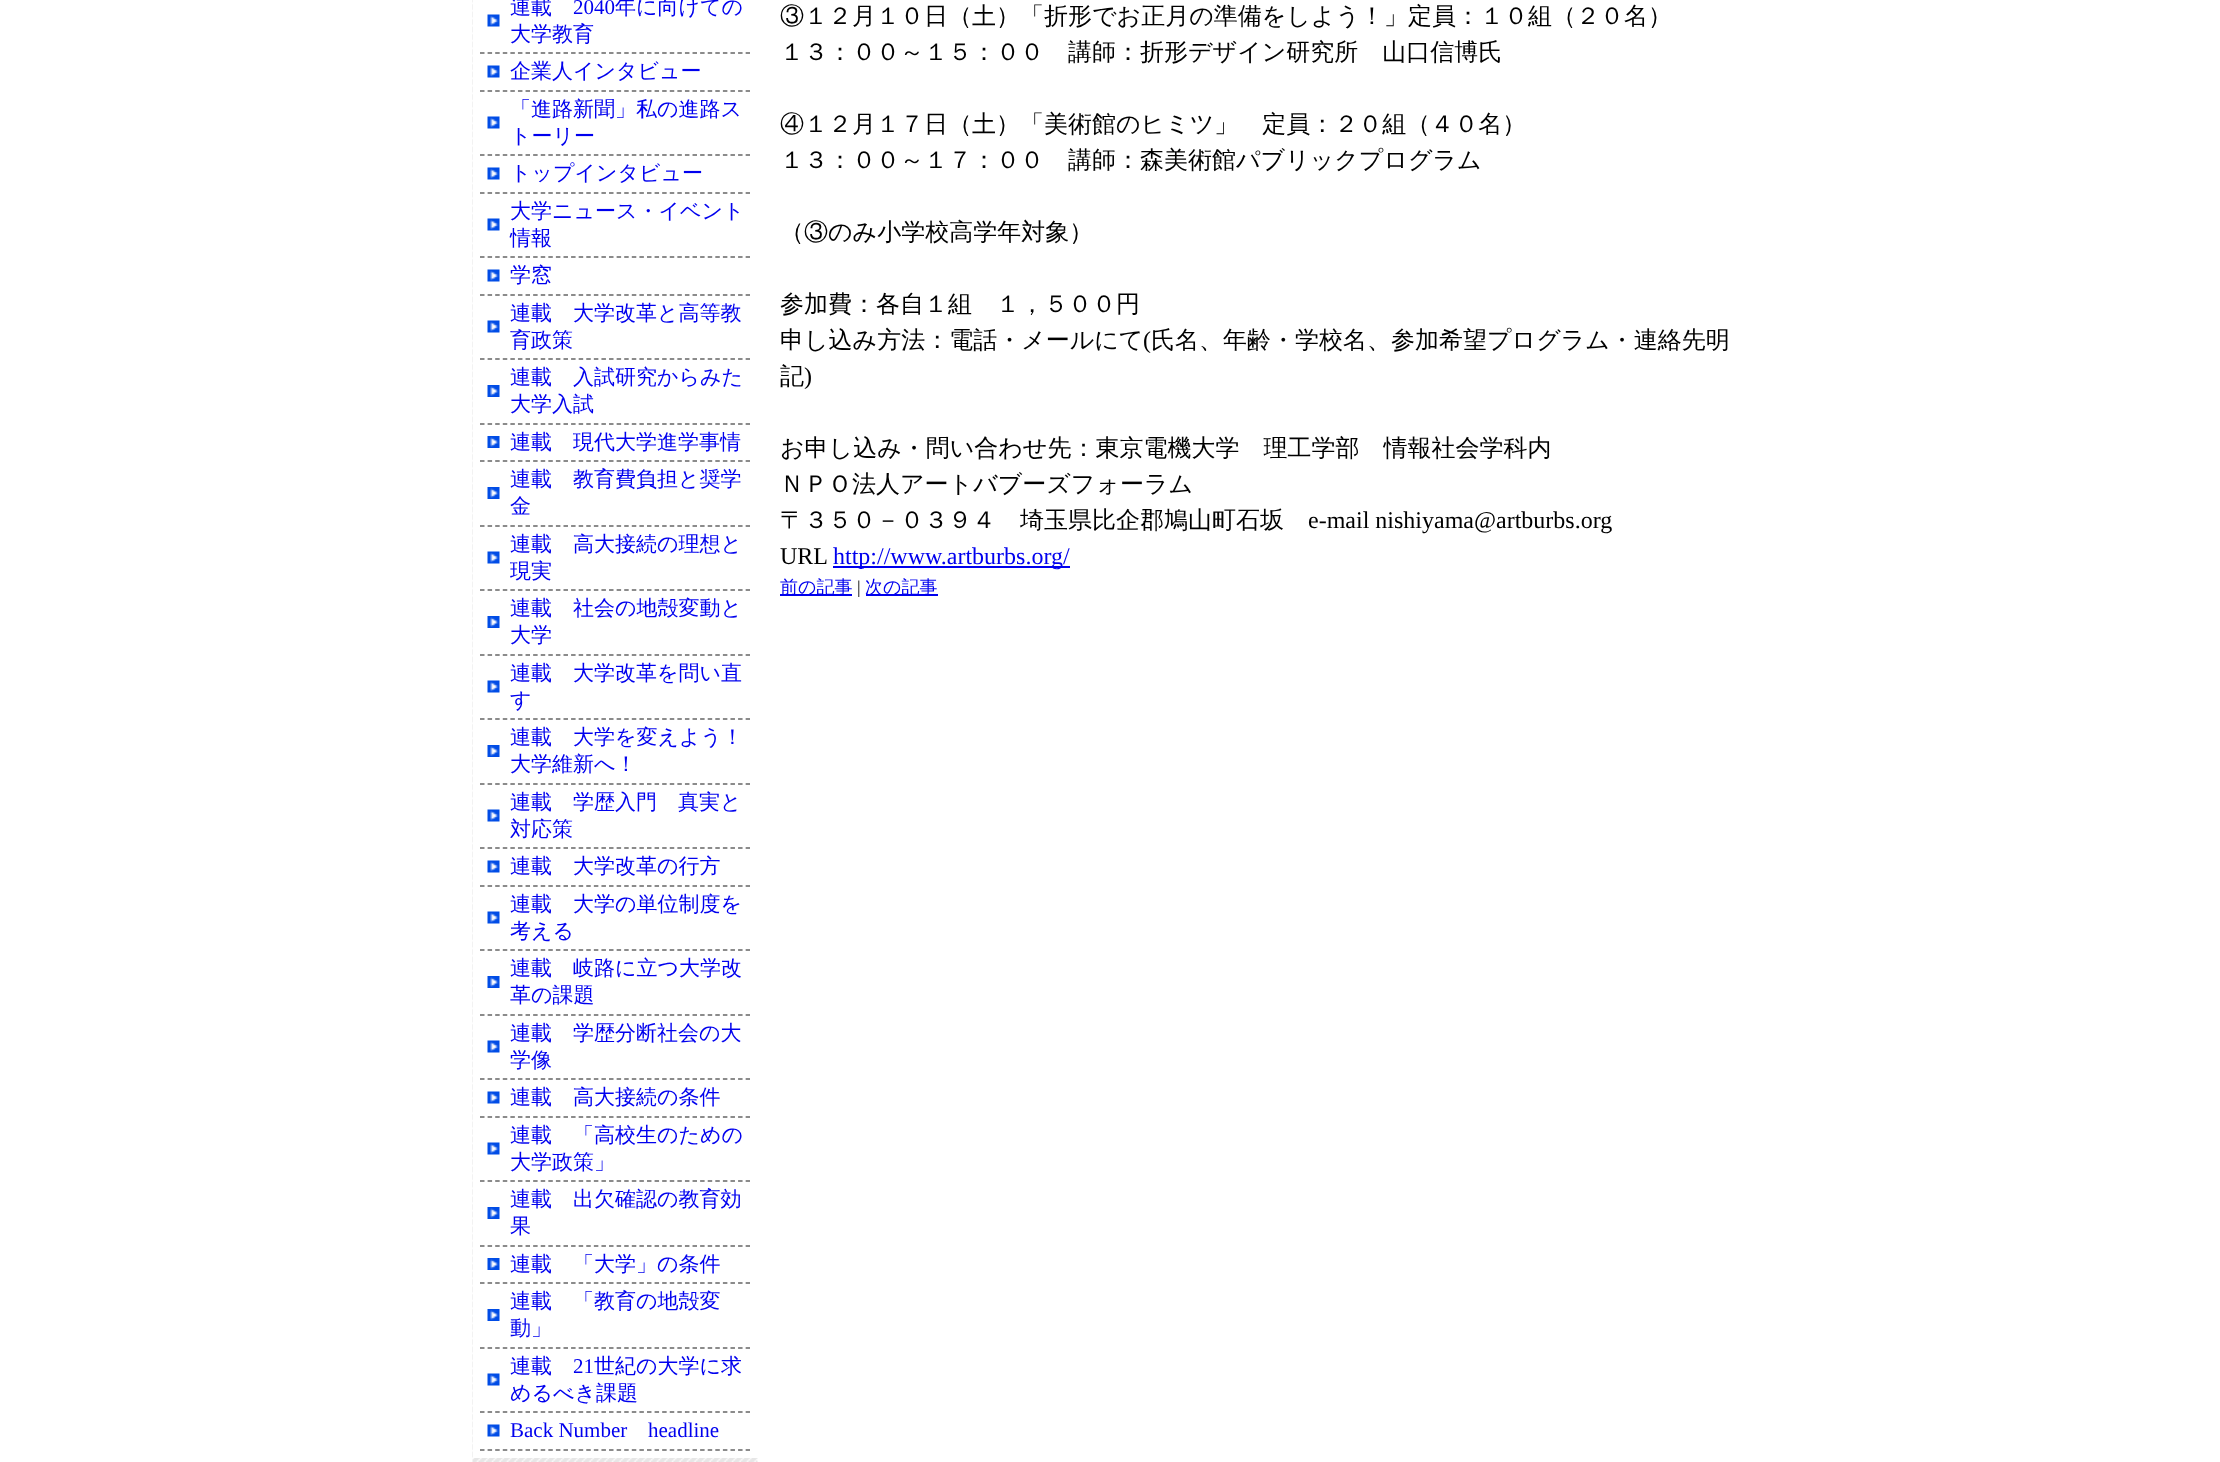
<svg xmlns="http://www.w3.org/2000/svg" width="2220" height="1462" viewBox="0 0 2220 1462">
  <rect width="100%" height="100%" fill="#fff"/>
  <image x="472" y="0" width="286" height="1462" href="img/1.png"/>
  <path d="M473 0h285v1458H473z" fill="#fff"/>
  <path d="M480 53H750" fill="none" stroke="#666" stroke-width="1.5" stroke-dasharray="4.5 3.09"/>
  <image x="487" y="14" width="13" height="13" href="img/2.png"/>
  <path d="M480 91H750" fill="none" stroke="#666" stroke-width="1.5" stroke-dasharray="4.5 3.09"/>
  <image x="487" y="65" width="13" height="13" href="img/2.png"/>
  <path d="M480 155H750" fill="none" stroke="#666" stroke-width="1.5" stroke-dasharray="4.5 3.09"/>
  <image x="487" y="116" width="13" height="13" href="img/2.png"/>
  <path d="M480 193H750" fill="none" stroke="#666" stroke-width="1.5" stroke-dasharray="4.5 3.09"/>
  <image x="487" y="167" width="13" height="13" href="img/2.png"/>
  <path d="M480 257H750" fill="none" stroke="#666" stroke-width="1.5" stroke-dasharray="4.5 3.09"/>
  <image x="487" y="218" width="13" height="13" href="img/2.png"/>
  <path d="M480 295H750" fill="none" stroke="#666" stroke-width="1.5" stroke-dasharray="4.5 3.09"/>
  <image x="487" y="269" width="13" height="13" href="img/2.png"/>
  <path d="M480 359H750" fill="none" stroke="#666" stroke-width="1.5" stroke-dasharray="4.5 3.09"/>
  <image x="487" y="320" width="13" height="13" href="img/2.png"/>
  <path d="M480 424H750" fill="none" stroke="#666" stroke-width="1.5" stroke-dasharray="4.5 3.09"/>
  <image x="487" y="385" width="13" height="12" href="img/3.png"/>
  <path d="M480 461H750" fill="none" stroke="#666" stroke-width="1.5" stroke-dasharray="4.5 3.09"/>
  <image x="487" y="436" width="13" height="12" href="img/3.png"/>
  <path d="M480 526H750" fill="none" stroke="#666" stroke-width="1.5" stroke-dasharray="4.5 3.09"/>
  <image x="487" y="487" width="13" height="12" href="img/3.png"/>
  <path d="M480 590H750" fill="none" stroke="#666" stroke-width="1.5" stroke-dasharray="4.5 3.09"/>
  <image x="487" y="551" width="13" height="13" href="img/2.png"/>
  <path d="M480 655H750" fill="none" stroke="#666" stroke-width="1.5" stroke-dasharray="4.5 3.09"/>
  <image x="487" y="616" width="13" height="12" href="img/3.png"/>
  <path d="M480 719H750" fill="none" stroke="#666" stroke-width="1.5" stroke-dasharray="4.5 3.09"/>
  <image x="487" y="680" width="13" height="13" href="img/2.png"/>
  <path d="M480 784H750" fill="none" stroke="#666" stroke-width="1.5" stroke-dasharray="4.5 3.09"/>
  <image x="487" y="745" width="13" height="12" href="img/3.png"/>
  <path d="M480 848H750" fill="none" stroke="#666" stroke-width="1.5" stroke-dasharray="4.5 3.09"/>
  <image x="487" y="809" width="13" height="13" href="img/2.png"/>
  <path d="M480 886H750" fill="none" stroke="#666" stroke-width="1.5" stroke-dasharray="4.5 3.09"/>
  <image x="487" y="860" width="13" height="13" href="img/2.png"/>
  <path d="M480 950H750" fill="none" stroke="#666" stroke-width="1.5" stroke-dasharray="4.5 3.09"/>
  <image x="487" y="911" width="13" height="13" href="img/2.png"/>
  <path d="M480 1015H750" fill="none" stroke="#666" stroke-width="1.5" stroke-dasharray="4.5 3.09"/>
  <image x="487" y="976" width="13" height="12" href="img/3.png"/>
  <path d="M480 1079H750" fill="none" stroke="#666" stroke-width="1.5" stroke-dasharray="4.5 3.09"/>
  <image x="487" y="1040" width="13" height="13" href="img/2.png"/>
  <path d="M480 1117H750" fill="none" stroke="#666" stroke-width="1.5" stroke-dasharray="4.5 3.09"/>
  <image x="487" y="1091" width="13" height="13" href="img/2.png"/>
  <path d="M480 1181H750" fill="none" stroke="#666" stroke-width="1.5" stroke-dasharray="4.5 3.09"/>
  <image x="487" y="1142" width="13" height="13" href="img/2.png"/>
  <path d="M480 1246H750" fill="none" stroke="#666" stroke-width="1.5" stroke-dasharray="4.5 3.09"/>
  <image x="487" y="1207" width="13" height="12" href="img/3.png"/>
  <path d="M480 1283H750" fill="none" stroke="#666" stroke-width="1.5" stroke-dasharray="4.5 3.09"/>
  <image x="487" y="1258" width="13" height="12" href="img/3.png"/>
  <path d="M480 1348H750" fill="none" stroke="#666" stroke-width="1.5" stroke-dasharray="4.5 3.09"/>
  <image x="487" y="1309" width="13" height="12" href="img/3.png"/>
  <path d="M480 1412H750" fill="none" stroke="#666" stroke-width="1.5" stroke-dasharray="4.5 3.09"/>
  <image x="487" y="1373" width="13" height="13" href="img/2.png"/>
  <path d="M480 1450H750" fill="none" stroke="#666" stroke-width="1.5" stroke-dasharray="4.5 3.09"/>
  <image x="487" y="1424" width="13" height="13" href="img/2.png"/>
  <path d="M833 566h237v2H833z" fill="#00e"/>
  <path d="M780 594h72v2H780z" fill="#00e"/>
  <path d="M866 594h72v2H866z" fill="#00e"/>
  <text x="510" y="14" font-family="WenQuanYi Zen Hei" font-size="21" font-weight="500" fill="#00e">連載</text>
  <text x="573" y="14" font-family="Liberation Serif" font-size="21" fill="#00e">2040</text>
  <g font-family="WenQuanYi Zen Hei" font-size="21" font-weight="500" fill="#00e">
    <text x="615" y="14">年に向けての</text>
    <text x="510" y="41">大学教育</text>
    <text x="510" y="78">企業人インタビュー</text>
    <text x="510" y="116">「進路新聞」私の進路ス</text>
    <text x="510" y="143">トーリー</text>
    <text x="510" y="180">トップインタビュー</text>
    <text x="510" y="218">大学ニュース・イベント</text>
    <text x="510" y="245">情報</text>
    <text x="510" y="282">学窓</text>
    <text x="510" y="320">連載　大学改革と高等教</text>
    <text x="510" y="347">育政策</text>
    <text x="510" y="384">連載　入試研究からみた</text>
    <text x="510" y="411">大学入試</text>
    <text x="510" y="449">連載　現代大学進学事情</text>
    <text x="510" y="486">連載　教育費負担と奨学</text>
    <text x="510" y="513">金</text>
    <text x="510" y="551">連載　高大接続の理想と</text>
    <text x="510" y="578">現実</text>
    <text x="510" y="615">連載　社会の地殻変動と</text>
    <text x="510" y="642">大学</text>
    <text x="510" y="680">連載　大学改革を問い直</text>
    <text x="510" y="707">す</text>
    <text x="510" y="744">連載　大学を変えよう！</text>
    <text x="510" y="771">大学維新へ！</text>
    <text x="510" y="809">連載　学歴入門　真実と</text>
    <text x="510" y="836">対応策</text>
    <text x="510" y="873">連載　大学改革の行方</text>
    <text x="510" y="911">連載　大学の単位制度を</text>
    <text x="510" y="938">考える</text>
    <text x="510" y="975">連載　岐路に立つ大学改</text>
    <text x="510" y="1002">革の課題</text>
    <text x="510" y="1040">連載　学歴分断社会の大</text>
    <text x="510" y="1067">学像</text>
    <text x="510" y="1104">連載　高大接続の条件</text>
    <text x="510" y="1142">連載　「高校生のための</text>
    <text x="510" y="1169">大学政策」</text>
    <text x="510" y="1206">連載　出欠確認の教育効</text>
    <text x="510" y="1233">果</text>
    <text x="510" y="1271">連載　「大学」の条件</text>
    <text x="510" y="1308">連載　「教育の地殻変</text>
    <text x="510" y="1335">動」</text>
    <text x="510" y="1373">連載</text>
  </g>
  <text x="573" y="1373" font-family="Liberation Serif" font-size="21" fill="#00e">21</text>
  <g font-family="WenQuanYi Zen Hei" font-size="21" font-weight="500" fill="#00e">
    <text x="594" y="1373">世紀の大学に求</text>
    <text x="510" y="1400">めるべき課題</text>
  </g>
  <g font-family="Liberation Serif" font-size="21" fill="#00e">
    <text x="510" y="1437">Back Number</text>
    <text x="648" y="1437">headline</text>
  </g>
  <g font-family="WenQuanYi Zen Hei" font-size="24" font-weight="500" fill="#000">
    <text x="780" y="24">③１２月１０日（土）「折形でお正月の準備をしよう！」定員：１０組（２０名）</text>
    <text x="780" y="60">１３：００～１５：００　講師：折形デザイン研究所　山口信博氏</text>
    <text x="780" y="132">④１２月１７日（土）「美術館のヒミツ」　定員：２０組（４０名）</text>
    <text x="780" y="168">１３：００～１７：００　講師：森美術館パブリックプログラム</text>
    <text x="780" y="240">（③のみ小学校高学年対象）</text>
    <text x="780" y="312">参加費：各自１組　１，５００円</text>
    <text x="780" y="348">申し込み方法：電話・メールにて</text>
  </g>
  <text x="1143" y="348" font-family="Liberation Serif" font-size="24" fill="#000">(</text>
  <g font-family="WenQuanYi Zen Hei" font-size="24" font-weight="500" fill="#000">
    <text x="1151" y="348">氏名、年齢・学校名、参加希望プログラム・連絡先明</text>
    <text x="780" y="384">記</text>
  </g>
  <text x="804" y="384" font-family="Liberation Serif" font-size="24" fill="#000">)</text>
  <g font-family="WenQuanYi Zen Hei" font-size="24" font-weight="500" fill="#000">
    <text x="780" y="456">お申し込み・問い合わせ先：東京電機大学　理工学部　情報社会学科内</text>
    <text x="780" y="492">ＮＰＯ法人アートバブーズフォーラム</text>
    <text x="780" y="528">〒３５０－０３９４　埼玉県比企郡鳩山町石坂</text>
  </g>
  <g font-family="Liberation Serif" font-size="24" fill="#000">
    <text x="1308" y="528">e-mail nishiyama@artburbs.org</text>
    <text x="780" y="564">URL</text>
  </g>
  <text x="833" y="564" font-family="Liberation Serif" font-size="24" fill="#00e">http://www.artburbs.org/</text>
  <text x="780" y="593" font-family="WenQuanYi Zen Hei" font-size="18" font-weight="500" fill="#00e">前の記事</text>
  <text x="857" y="593" font-family="Liberation Serif" font-size="18" fill="#000">|</text>
  <text x="865" y="593" font-family="WenQuanYi Zen Hei" font-size="18" font-weight="500" fill="#00e">次の記事</text>
</svg>
